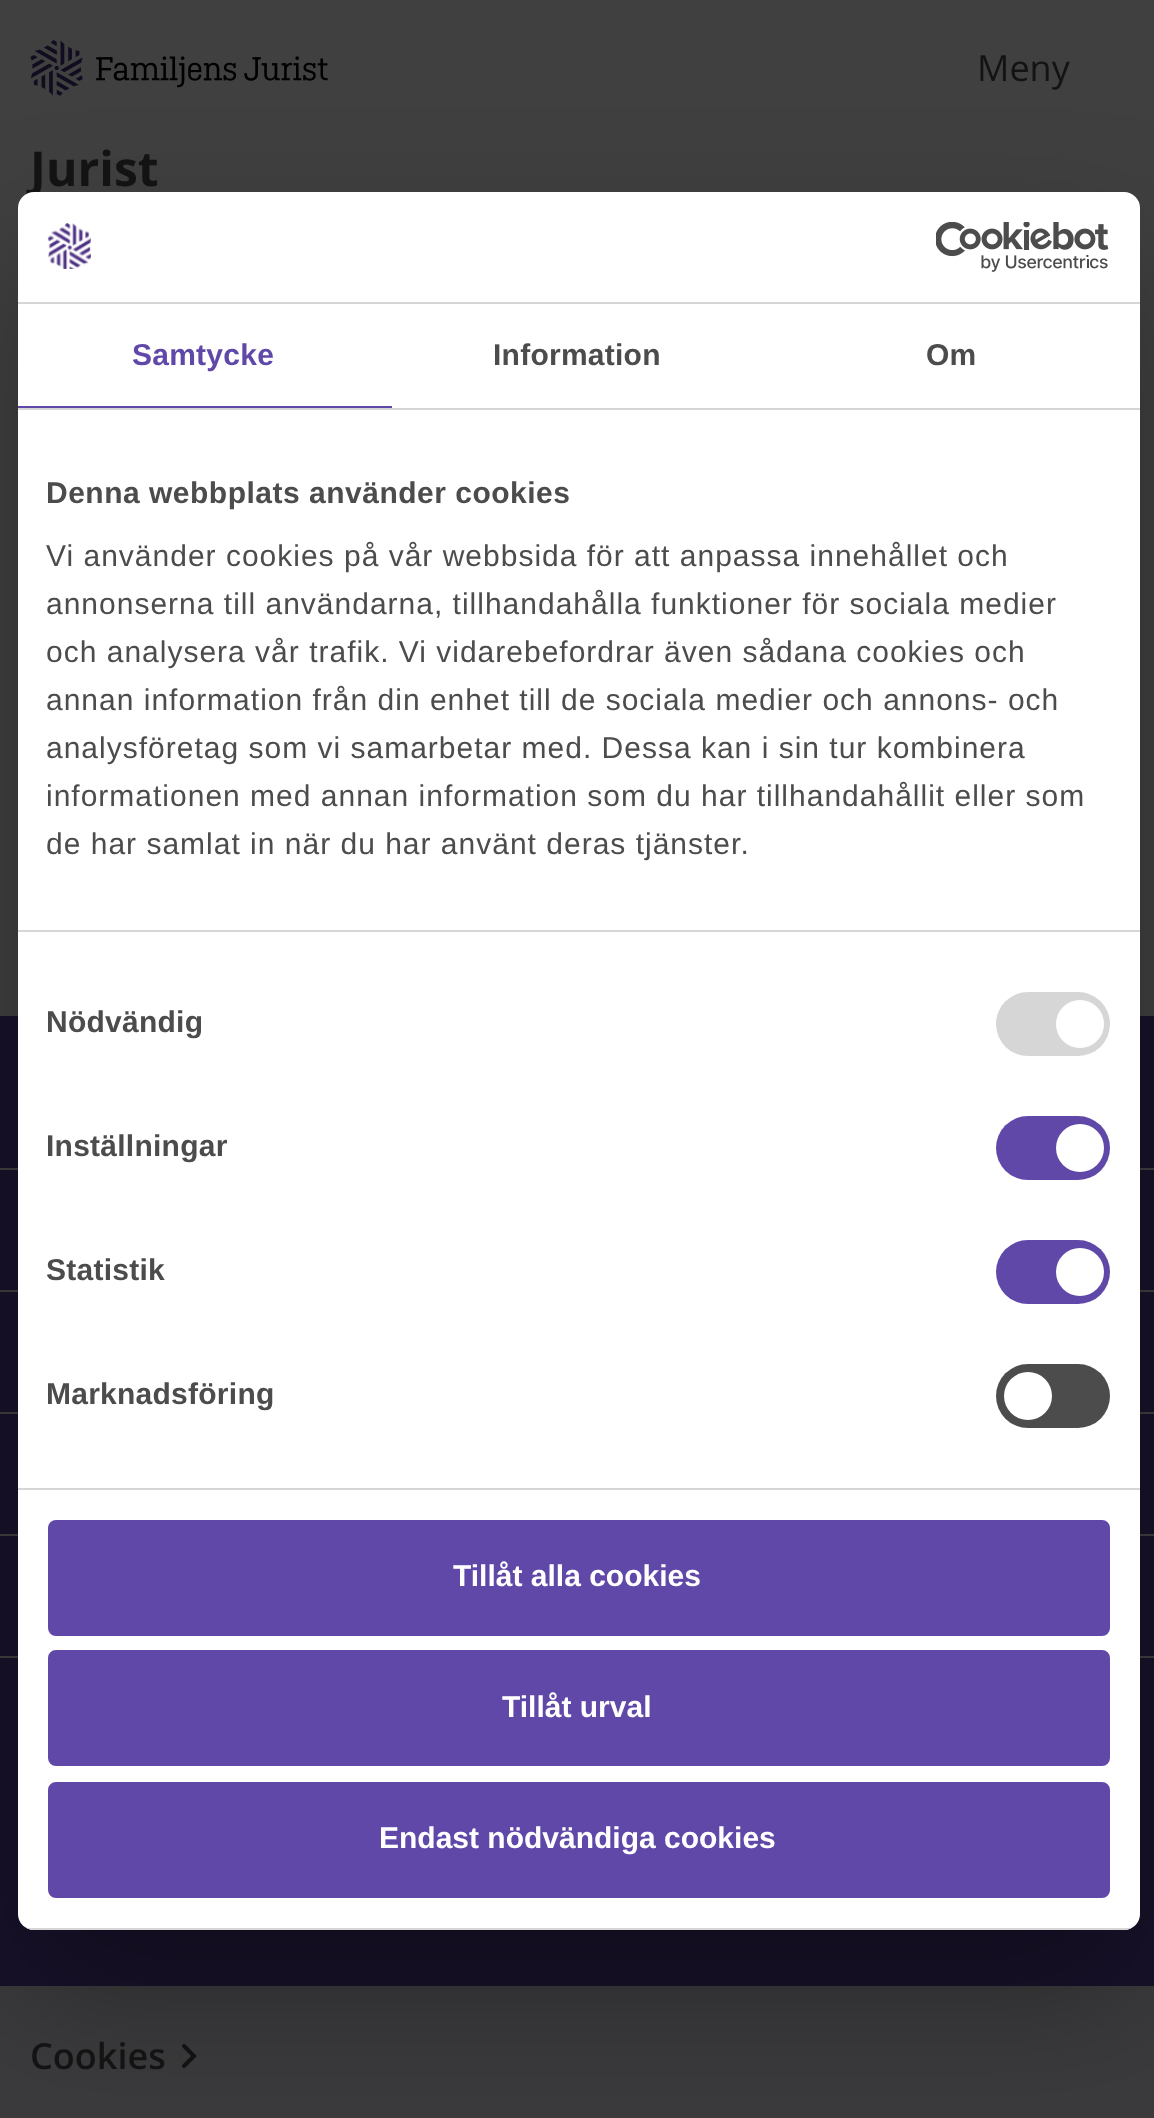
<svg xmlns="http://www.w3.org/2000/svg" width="1154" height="2118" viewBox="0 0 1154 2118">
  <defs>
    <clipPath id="clip1"><rect x="18" y="192" width="1122" height="1738" rx="16"/></clipPath>
  </defs>
  <rect width="100%" height="100%" fill="#404040"/>
  <image x="30" y="40" width="298" height="56" href="img/1.png"/>
  <path d="M0 1016h1154v970H0z" fill="#18122a"/>
  <path d="M0 1168h1154v2H0z" fill="#404040"/>
  <path d="M0 1290h1154v2H0z" fill="#404040"/>
  <path d="M0 1412h1154v2H0z" fill="#404040"/>
  <path d="M0 1534h1154v2H0z" fill="#404040"/>
  <path d="M0 1656h1154v2H0z" fill="#404040"/>
  <path d="M0 1986h1154v132H0z" fill="#3b3b3d"/>
  <image x="182" y="2044" width="15" height="24" href="img/2.png"/>
  <rect x="18" y="256" width="1122" height="1738" rx="16" fill="#0000004d" filter="blur(68px)"/>
  <text x="977" y="81" font-family="Open Sans" font-size="36" fill="#131313">Meny</text>
  <text x="30" y="186" font-family="Open Sans" font-size="48" font-weight="bold" fill="#131313">Jurist</text>
  <text x="30" y="2069" font-family="Open Sans" font-size="36" font-weight="600" fill="#131313">Cookies</text>
  <rect x="18" y="192" width="1122" height="1738" rx="16" fill="#fff"/>
  <path d="M18 302h1122v2H18z" fill="#d6d6d6"/>
  <image x="47" y="223" width="44" height="46" href="img/3.png"/>
  <image x="936" y="222" width="173" height="50" href="img/4.png"/>
  <path d="M18 408h1122v2H18z" fill="#d6d6d6"/>
  <path d="M18 406h374v2H18z" fill="#6048a8"/>
  <text x="132" y="365" font-family="Liberation Sans" font-size="30" font-weight="bold" letter-spacing="0.25" fill="#6048a8">Samtycke</text>
  <g font-family="Liberation Sans" font-size="30" font-weight="bold" letter-spacing="0.25" fill="#4c4c4c">
    <text x="493" y="365">Information</text>
    <text x="926" y="365">Om</text>
  </g>
  <path d="M18 930h1122v2H18z" fill="#d6d6d6"/>
  <text x="46" y="503" font-family="Liberation Sans" font-size="30" font-weight="bold" letter-spacing="0.5" fill="#4c4c4c">Denna webbplats använder cookies</text>
  <g font-family="Liberation Sans" font-size="30" letter-spacing="1" fill="#4c4c4c">
    <text x="46" y="566">Vi använder cookies på vår webbsida för att anpassa innehållet och</text>
    <text x="46" y="614">annonserna till användarna, tillhandahålla funktioner för sociala medier</text>
    <text x="46" y="662">och analysera vår trafik. Vi vidarebefordrar även sådana cookies och</text>
    <text x="46" y="710">annan information från din enhet till de sociala medier och annons- och</text>
    <text x="46" y="758">analysföretag som vi samarbetar med. Dessa kan i sin tur kombinera</text>
    <text x="46" y="806">informationen med annan information som du har tillhandahållit eller som</text>
    <text x="46" y="854">de har samlat in när du har använt deras tjänster.</text>
  </g>
  <path d="M18 1488h1122v2H18z" fill="#d6d6d6"/>
  <text x="46" y="1032" font-family="Liberation Sans" font-size="30" font-weight="bold" letter-spacing="0.25" fill="#4c4c4c">Nödvändig</text>
  <rect x="996" y="992" width="114" height="64" rx="32" fill="#d6d6d6"/>
  <circle cx="1080" cy="1024" r="24" fill="#fff"/>
  <text x="46" y="1156" font-family="Liberation Sans" font-size="30" font-weight="bold" letter-spacing="0.25" fill="#4c4c4c">Inställningar</text>
  <rect x="996" y="1116" width="114" height="64" rx="32" fill="#6048a8"/>
  <circle cx="1080" cy="1148" r="24" fill="#fff"/>
  <text x="46" y="1280" font-family="Liberation Sans" font-size="30" font-weight="bold" letter-spacing="0.25" fill="#4c4c4c">Statistik</text>
  <rect x="996" y="1240" width="114" height="64" rx="32" fill="#6048a8"/>
  <circle cx="1080" cy="1272" r="24" fill="#fff"/>
  <text x="46" y="1404" font-family="Liberation Sans" font-size="30" font-weight="bold" letter-spacing="0.25" fill="#4c4c4c">Marknadsföring</text>
  <rect x="996" y="1364" width="114" height="64" rx="32" fill="#4c4c4c"/>
  <circle cx="1028" cy="1396" r="24" fill="#fff"/>
  <g clip-path="url(#clip1)">
    <path d="M18 1928h1122v2H18z" fill="#d6d6d6"/>
  </g>
  <rect x="50" y="1522" width="1058" height="112" rx="6" fill="#6048a8" stroke="#6048a8" stroke-width="4"/>
  <text x="453" y="1586" font-family="Liberation Sans" font-size="30" font-weight="bold" fill="#fff">Tillåt alla cookies</text>
  <rect x="50" y="1652" width="1058" height="112" rx="6" fill="#6048a8" stroke="#6048a8" stroke-width="4"/>
  <text x="502" y="1717" font-family="Liberation Sans" font-size="30" font-weight="bold" fill="#fff">Tillåt urval</text>
  <rect x="50" y="1784" width="1058" height="112" rx="6" fill="#6048a8" stroke="#6048a8" stroke-width="4"/>
  <text x="379" y="1848" font-family="Liberation Sans" font-size="30" font-weight="bold" fill="#fff">Endast nödvändiga cookies</text>
</svg>
